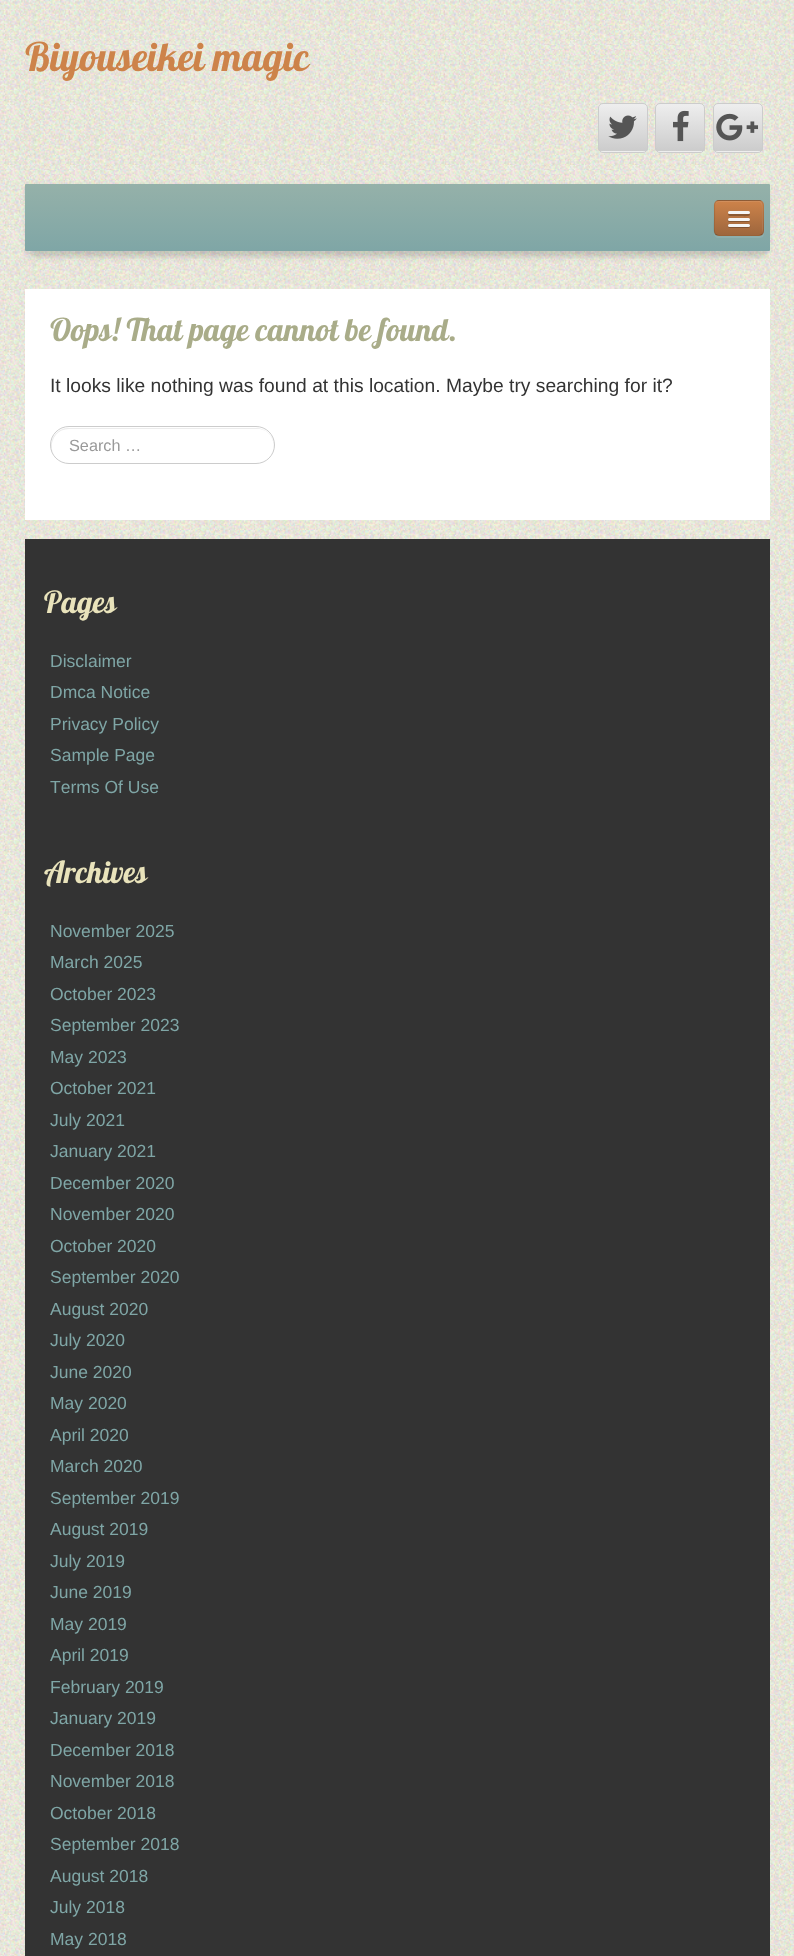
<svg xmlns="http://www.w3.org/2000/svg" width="794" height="1956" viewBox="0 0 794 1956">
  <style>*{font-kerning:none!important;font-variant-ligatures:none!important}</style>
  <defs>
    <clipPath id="clip1"><rect x="598" y="103" width="50" height="50" rx="5"/></clipPath>
    <linearGradient id="g1" gradientUnits="userSpaceOnUse" x1="623" y1="104" x2="623" y2="151"><stop offset="0" stop-color="#eee"/><stop offset="1" stop-color="#ccc"/></linearGradient>
    <linearGradient id="g2" gradientUnits="userSpaceOnUse" x1="623" y1="151" x2="623" y2="199"><stop offset="0" stop-color="#eee"/><stop offset="1" stop-color="#ccc"/></linearGradient>
    <clipPath id="clip2"><rect x="655" y="103" width="50" height="50" rx="5"/></clipPath>
    <linearGradient id="g3" gradientUnits="userSpaceOnUse" x1="680" y1="104" x2="680" y2="151"><stop offset="0" stop-color="#eee"/><stop offset="1" stop-color="#ccc"/></linearGradient>
    <linearGradient id="g4" gradientUnits="userSpaceOnUse" x1="680" y1="151" x2="680" y2="199"><stop offset="0" stop-color="#eee"/><stop offset="1" stop-color="#ccc"/></linearGradient>
    <clipPath id="clip3"><rect x="713" y="103" width="50" height="50" rx="5"/></clipPath>
    <linearGradient id="g5" gradientUnits="userSpaceOnUse" x1="738" y1="104" x2="738" y2="151"><stop offset="0" stop-color="#eee"/><stop offset="1" stop-color="#ccc"/></linearGradient>
    <linearGradient id="g6" gradientUnits="userSpaceOnUse" x1="738" y1="151" x2="738" y2="199"><stop offset="0" stop-color="#eee"/><stop offset="1" stop-color="#ccc"/></linearGradient>
    <linearGradient id="g7" gradientUnits="userSpaceOnUse" x1="398" y1="184" x2="398" y2="251"><stop offset="0" stop-color="#95b1a9"/><stop offset="1" stop-color="#7fa6a6"/></linearGradient>
    <clipPath id="clip4"><rect x="714" y="200" width="50" height="36" rx="5"/></clipPath>
    <linearGradient id="g8" gradientUnits="userSpaceOnUse" x1="739" y1="168" x2="739" y2="201"><stop offset="0" stop-color="#cd834a"/><stop offset="1" stop-color="#9e663d"/></linearGradient>
    <linearGradient id="g9" gradientUnits="userSpaceOnUse" x1="739" y1="201" x2="739" y2="235"><stop offset="0" stop-color="#cd834a"/><stop offset="1" stop-color="#9e663d"/></linearGradient>
    <linearGradient id="g10" gradientUnits="userSpaceOnUse" x1="739" y1="235" x2="739" y2="269"><stop offset="0" stop-color="#cd834a"/><stop offset="1" stop-color="#9e663d"/></linearGradient>
  </defs>
  <rect width="100%" height="100%" fill="#fff"/>
  <image x="0" y="0" width="794" height="1956" href="img/1.png"/>
  <g clip-path="url(#clip1)">
    <path d="M598 104h50v47H598z" fill="url(#g1)"/>
    <path d="M598 151h50v2H598z" fill="url(#g2)"/>
  </g>
  <rect x="598.5" y="103.5" width="49" height="49" rx="4.5" fill="none" stroke="#ccc"/>
  <image x="608" y="115" width="29" height="24" href="img/2.png"/>
  <g clip-path="url(#clip2)">
    <path d="M655 104h50v47H655z" fill="url(#g3)"/>
    <path d="M655 151h50v2H655z" fill="url(#g4)"/>
  </g>
  <rect x="655.5" y="103.5" width="49" height="49" rx="4.5" fill="none" stroke="#ccc"/>
  <image x="673" y="110" width="16" height="32" href="img/3.png"/>
  <g clip-path="url(#clip3)">
    <path d="M713 104h50v47H713z" fill="url(#g5)"/>
    <path d="M713 151h50v2H713z" fill="url(#g6)"/>
  </g>
  <rect x="713.5" y="103.5" width="49" height="49" rx="4.5" fill="none" stroke="#ccc"/>
  <image x="716" y="113" width="43" height="28" href="img/4.png"/>
  <rect x="25" y="185" width="745" height="68" rx="1" fill="#00000012" filter="blur(2.5px)"/>
  <path d="M31 253h734v1H31z" fill="#000000e6" filter="blur(3px)"/>
  <rect x="25" y="184" width="745" height="67" rx="1" fill="url(#g7)"/>
  <path d="M714 233V235C715 236 716 238 718 238H760L763 237C765 234 764 223 764 220V204V231C764 234 762 236 759 236H719C717 236 715 235 714 233Z" fill="#8dafae"/>
  <g clip-path="url(#clip4)">
    <path d="M714 200h50v1H714z" fill="url(#g8)"/>
    <path d="M714 201h50v34H714z" fill="url(#g9)"/>
    <path d="M714 235h50v1H714z" fill="url(#g10)"/>
  </g>
  <path d="M719 202H746C763 202 762 199 762 215V234C764 231 763 221 763 218C763 198 766 201 746 201H726C721 201 715 200 715 206C715 204 717 202 719 202Z" fill="#ffffff1a"/>
  <path d="M762 234.5C761 235 760 235.5 759 235.5H719C717.5 235.5 716.5 235 715.5 234.5" fill="none" stroke="#00000040" stroke-width="1.2"/>
  <path d="M715.5 234.5C713 231.5 714.5 221.5 714.5 218V209.5C714.5 206 713.5 201.5 718 200.5H759.5C764 201.5 763 206 763 209.5V218C763 221.5 764.5 231.5 762 234.5" fill="none" stroke="#0000001a" stroke-width="1.2"/>
  <path d="M728.5 213.5C726.5 216.5 732 216 732.5 216H739C741 216 749 216.5 749.5 215.5C750 214.5 750 214 749.5 213.5C749 214 729.5 214 728.5 213.5Z" fill="#8b5933"/>
  <rect x="728" y="211" width="22" height="3" rx="1.5" fill="#f5f5f5"/>
  <path d="M728 220C727 222.5 732 222 732.5 222H745.5C745.5 222 752 222.5 749.5 219.5L749 220Z" fill="#855632"/>
  <rect x="728" y="218" width="22" height="3" rx="1.5" fill="#f5f5f5"/>
  <path d="M728 226C727.5 228.5 732 228 732.5 228H745.5C746 228 751.5 228.5 750 225.5L749 226Z" fill="#7f5130"/>
  <rect x="728" y="224" width="22" height="3" rx="1.5" fill="#f5f5f5"/>
  <path d="M25 289h745v231H25z" fill="#fff"/>
  <path d="M69 429H260C271 431 276 443 273 453C273 450 274 448 274 446C274 436 266 428 256 428H68C59 428 51 436 51 446C51 448 52 451 53 453C49 443 55 429 69 429Z" fill="#ececec"/>
  <rect x="50.5" y="426.5" width="224" height="37" rx="18.5" fill="none" stroke="#ccc"/>
  <path d="M25 539h745v1417H25z" fill="#333"/>
  <text x="25" y="71" font-family="Lobster" font-size="39.5" fill="#cd834a">Biyouseikei magic</text>
  <text x="50" y="341" font-family="Lobster" font-size="31.5" fill="#a9ac89">Oops! That page cannot be found.</text>
  <text x="50" y="392" font-family="Liberation Sans" font-size="19.25" fill="#333">It looks like nothing was found at this location. Maybe try searching for it?</text>
  <text x="69" y="451" font-family="Liberation Sans" font-size="16.25" fill="#999">Search …</text>
  <text x="44" y="613" font-family="Lobster" font-size="30.5" fill="#e9e3bb">Pages</text>
  <g font-family="Liberation Sans" font-size="17.5" fill="#7fa6a6">
    <text x="50" y="667">Disclaimer</text>
    <text x="50" y="698">Dmca Notice</text>
    <text x="50" y="730">Privacy Policy</text>
    <text x="50" y="761">Sample Page</text>
    <text x="50" y="793">Terms Of Use</text>
  </g>
  <text x="44" y="883" font-family="Lobster" font-size="30.5" fill="#e9e3bb">Archives</text>
  <g font-family="Liberation Sans" font-size="17.5" fill="#7fa6a6">
    <text x="50" y="937">November 2025</text>
    <text x="50" y="968">March 2025</text>
    <text x="50" y="1000">October 2023</text>
    <text x="50" y="1031">September 2023</text>
    <text x="50" y="1063">May 2023</text>
    <text x="50" y="1094">October 2021</text>
    <text x="50" y="1126">July 2021</text>
    <text x="50" y="1157">January 2021</text>
    <text x="50" y="1189">December 2020</text>
    <text x="50" y="1220">November 2020</text>
    <text x="50" y="1252">October 2020</text>
    <text x="50" y="1283">September 2020</text>
    <text x="50" y="1315">August 2020</text>
    <text x="50" y="1346">July 2020</text>
    <text x="50" y="1378">June 2020</text>
    <text x="50" y="1409">May 2020</text>
    <text x="50" y="1441">April 2020</text>
    <text x="50" y="1472">March 2020</text>
    <text x="50" y="1504">September 2019</text>
    <text x="50" y="1535">August 2019</text>
    <text x="50" y="1567">July 2019</text>
    <text x="50" y="1598">June 2019</text>
    <text x="50" y="1630">May 2019</text>
    <text x="50" y="1661">April 2019</text>
    <text x="50" y="1693">February 2019</text>
    <text x="50" y="1724">January 2019</text>
    <text x="50" y="1756">December 2018</text>
    <text x="50" y="1787">November 2018</text>
    <text x="50" y="1819">October 2018</text>
    <text x="50" y="1850">September 2018</text>
    <text x="50" y="1882">August 2018</text>
    <text x="50" y="1913">July 2018</text>
    <text x="50" y="1945">May 2018</text>
  </g>
</svg>
